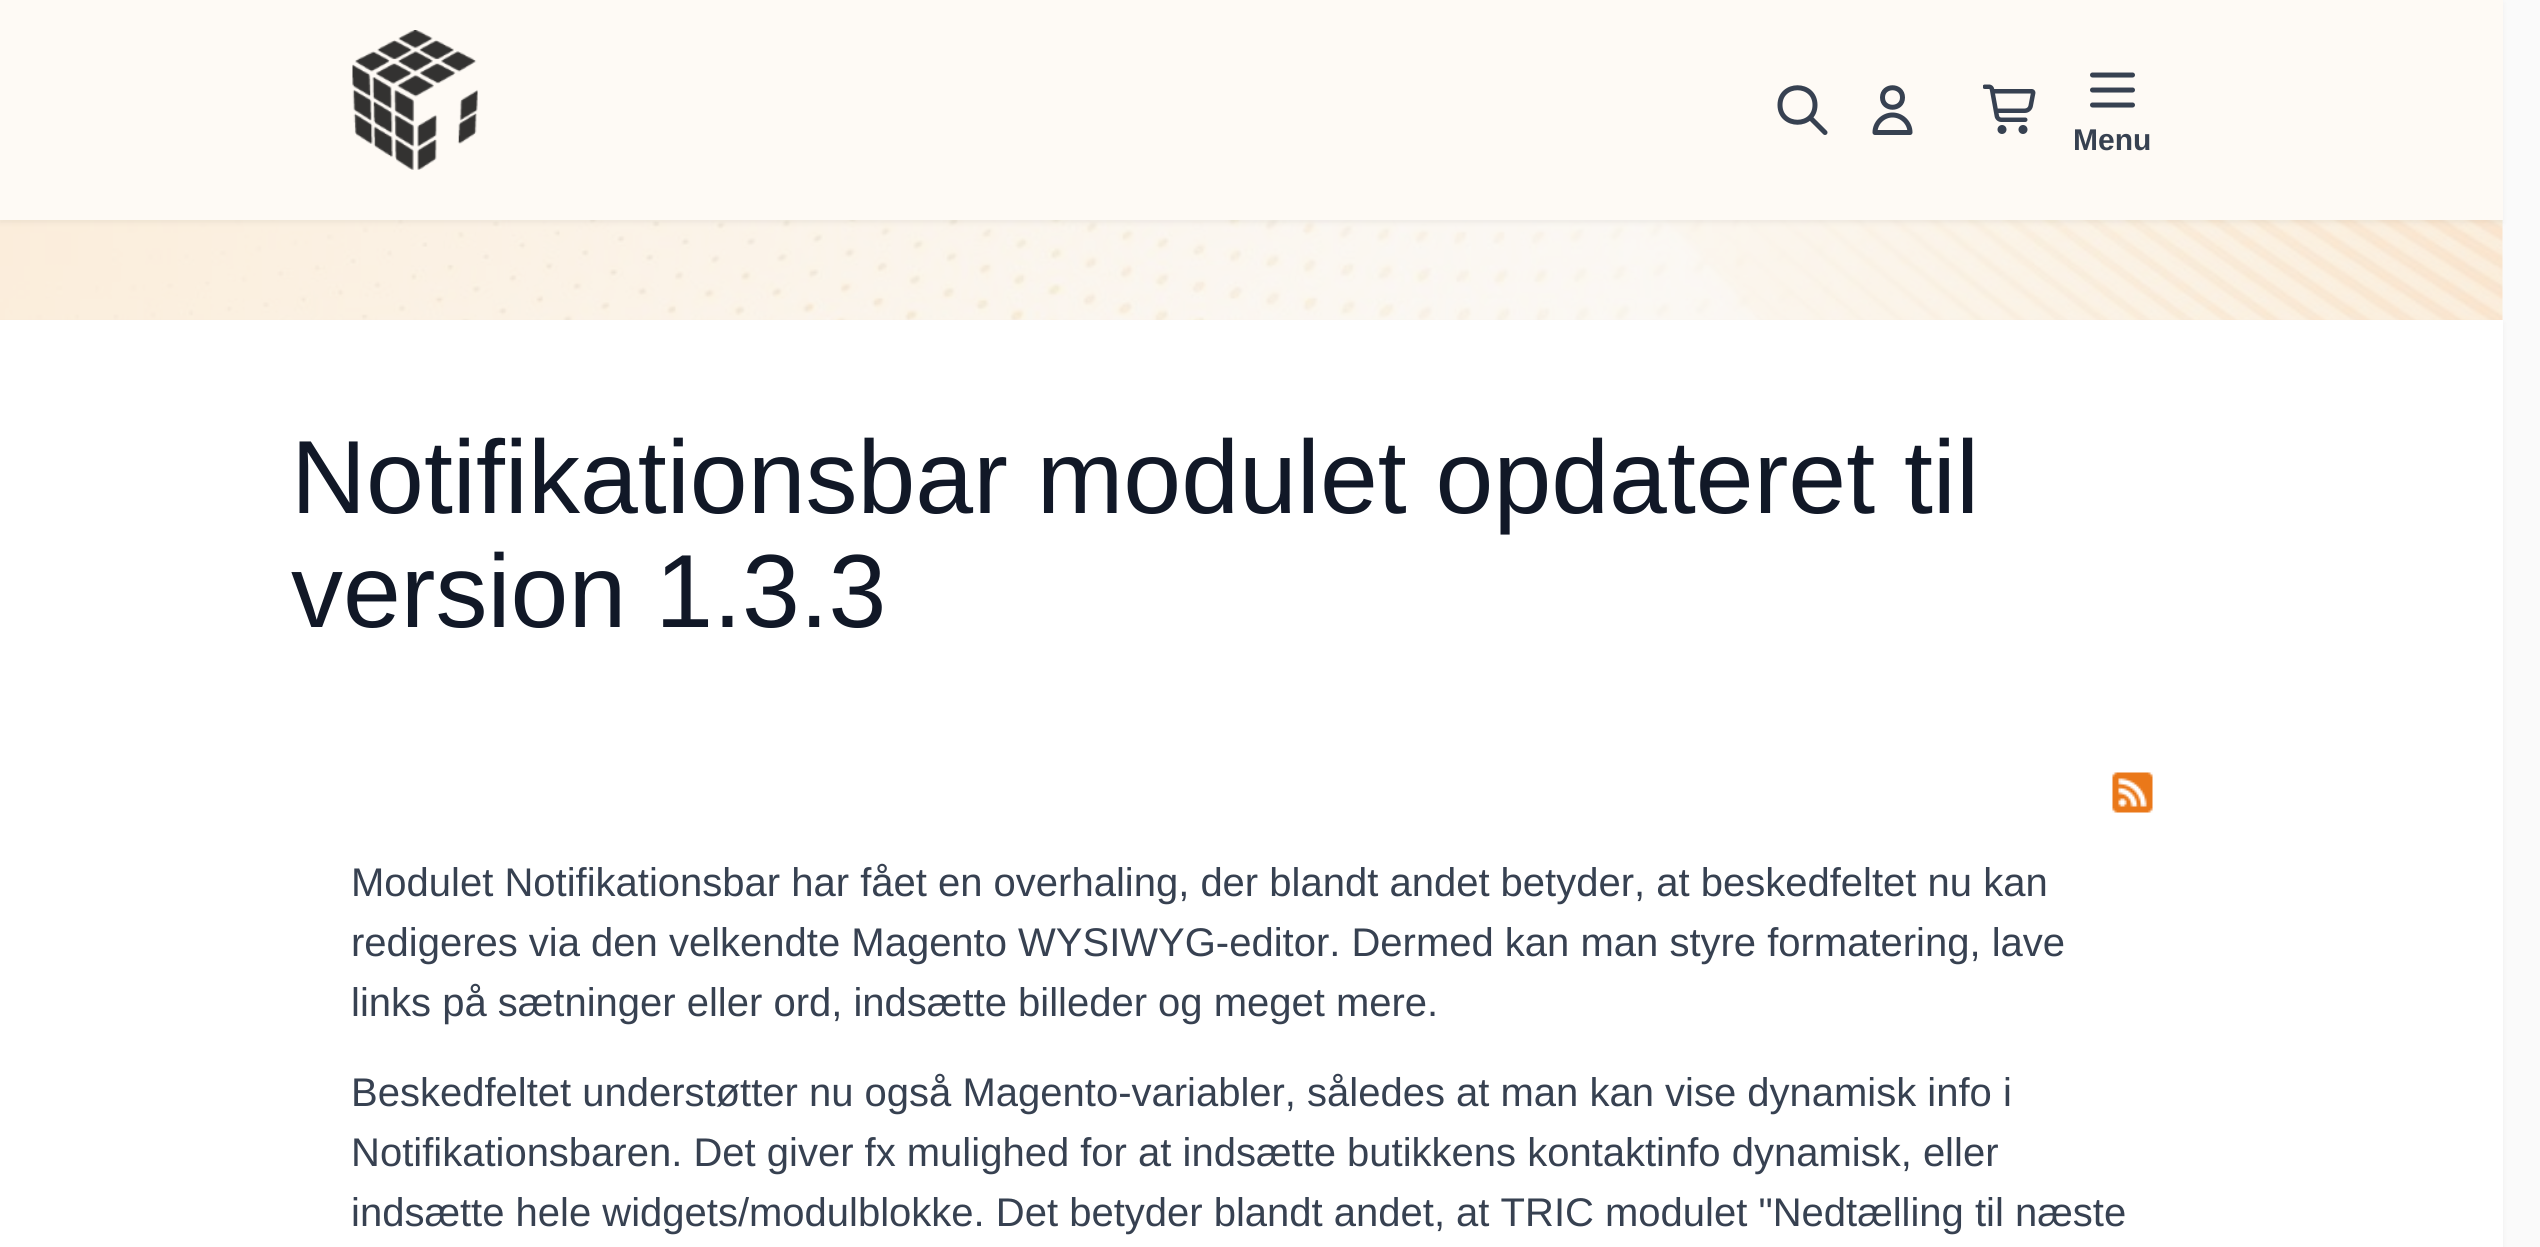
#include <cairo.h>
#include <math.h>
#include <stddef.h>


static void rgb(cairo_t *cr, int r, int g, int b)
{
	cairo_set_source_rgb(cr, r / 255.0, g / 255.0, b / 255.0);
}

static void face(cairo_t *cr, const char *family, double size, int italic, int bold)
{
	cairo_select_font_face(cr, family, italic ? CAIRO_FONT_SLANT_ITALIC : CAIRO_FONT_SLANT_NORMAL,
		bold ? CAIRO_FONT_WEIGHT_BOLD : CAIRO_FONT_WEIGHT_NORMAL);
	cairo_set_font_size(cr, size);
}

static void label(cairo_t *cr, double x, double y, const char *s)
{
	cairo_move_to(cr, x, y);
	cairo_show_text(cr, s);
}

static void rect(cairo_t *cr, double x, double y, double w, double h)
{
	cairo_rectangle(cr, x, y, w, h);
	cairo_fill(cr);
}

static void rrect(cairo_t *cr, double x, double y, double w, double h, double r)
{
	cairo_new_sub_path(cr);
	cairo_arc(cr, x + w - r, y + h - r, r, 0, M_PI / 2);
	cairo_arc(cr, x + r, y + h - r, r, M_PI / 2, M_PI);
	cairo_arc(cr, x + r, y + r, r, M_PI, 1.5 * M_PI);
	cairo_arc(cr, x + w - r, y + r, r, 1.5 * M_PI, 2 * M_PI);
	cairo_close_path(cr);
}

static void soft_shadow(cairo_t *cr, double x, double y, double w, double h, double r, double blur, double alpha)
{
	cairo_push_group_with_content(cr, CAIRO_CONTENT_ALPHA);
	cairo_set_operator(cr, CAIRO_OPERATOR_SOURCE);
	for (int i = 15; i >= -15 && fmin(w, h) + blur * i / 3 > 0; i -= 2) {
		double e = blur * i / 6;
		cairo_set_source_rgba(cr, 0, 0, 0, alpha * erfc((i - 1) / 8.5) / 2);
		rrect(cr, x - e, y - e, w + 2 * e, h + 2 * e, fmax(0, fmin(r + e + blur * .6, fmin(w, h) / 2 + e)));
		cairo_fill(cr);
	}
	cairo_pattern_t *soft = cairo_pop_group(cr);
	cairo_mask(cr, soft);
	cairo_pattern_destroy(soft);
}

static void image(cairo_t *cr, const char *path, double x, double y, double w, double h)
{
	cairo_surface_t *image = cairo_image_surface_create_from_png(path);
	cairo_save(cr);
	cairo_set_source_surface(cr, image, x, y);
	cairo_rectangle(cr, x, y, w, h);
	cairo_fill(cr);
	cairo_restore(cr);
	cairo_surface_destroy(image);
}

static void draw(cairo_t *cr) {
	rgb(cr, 250, 250, 250);
	cairo_paint(cr);
	image(cr, "image2.png", 0, 220, 2503, 100);
	rgb(cr, 0, 0, 0);
	soft_shadow(cr, 0, 3, 2503, 220, 0, 2.5, 0.05);
	rgb(cr, 254, 250, 245);
	rect(cr, 0, 0, 2503, 220);
	image(cr, "image0.png", 352, 30, 126, 140);
	cairo_new_path(cr);
	cairo_move_to(cr, 1825, 132.5);
	cairo_line_to(cr, 1810, 117.5);
	cairo_move_to(cr, 1815, 105);
	cairo_curve_to(cr, 1815, 128, 1780, 128, 1780, 105);
	cairo_curve_to(cr, 1780, 82, 1815, 82, 1815, 105);
	cairo_close_path(cr);
	rgb(cr, 55, 65, 81);
	cairo_set_line_width(cr, 5);
	cairo_set_line_cap(cr, CAIRO_LINE_CAP_ROUND);
	cairo_set_line_join(cr, CAIRO_LINE_JOIN_ROUND);
	cairo_stroke(cr);
	cairo_new_path(cr);
	cairo_move_to(cr, 1902.5, 97.5);
	cairo_curve_to(cr, 1902.5, 110.5, 1882.5, 110.5, 1882.5, 97.5);
	cairo_curve_to(cr, 1882.5, 84.5, 1902.5, 84.5, 1902.5, 97.5);
	cairo_close_path(cr);
	cairo_move_to(cr, 1892.5, 115);
	cairo_curve_to(cr, 1883, 115, 1875, 123, 1875, 132.5);
	cairo_line_to(cr, 1910, 132.5);
	cairo_curve_to(cr, 1910, 123, 1902, 115, 1892.5, 115);
	cairo_close_path(cr);
	cairo_stroke(cr);
	image(cr, "image1.png", 1983, 84, 53, 50);
	cairo_new_path(cr);
	cairo_move_to(cr, 2092.5, 75);
	cairo_line_to(cr, 2132.5, 75);
	cairo_move_to(cr, 2092.5, 90);
	cairo_line_to(cr, 2132.5, 90);
	cairo_move_to(cr, 2092.5, 105);
	cairo_line_to(cr, 2132.5, 105);
	cairo_stroke(cr);
	face(cr, "Liberation Sans", 30, 0, 1);
	label(cr, 2073, 150, "Menu");
	rgb(cr, 0, 0, 0);
	soft_shadow(cr, 0, 323, 2503, 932, 0, 2.5, 0.05);
	rgb(cr, 255, 255, 255);
	rect(cr, 0, 320, 2503, 927);
	face(cr, "Liberation Sans", 104, 0, 0);
	rgb(cr, 17, 24, 39);
	label(cr, 291, 513, "Notifikationsbar modulet opdateret til");
	label(cr, 291, 627, "version 1.3.3");
	image(cr, "image3.png", 2112, 772, 41, 41);
	face(cr, "Liberation Sans", 40, 0, 0);
	rgb(cr, 55, 65, 81);
	label(cr, 351, 896, "Modulet Notifikationsbar har fået en overhaling, der blandt andet betyder, at beskedfeltet nu kan");
	label(cr, 351, 956, "redigeres via den velkendte Magento WYSIWYG-editor. Dermed kan man styre formatering, lave");
	label(cr, 351, 1016, "links på sætninger eller ord, indsætte billeder og meget mere.");
	label(cr, 351, 1106, "Beskedfeltet understøtter nu også Magento-variabler, således at man kan vise dynamisk info i");
	label(cr, 351, 1166, "Notifikationsbaren. Det giver fx mulighed for at indsætte butikkens kontaktinfo dynamisk, eller");
	label(cr, 351, 1226, "indsætte hele widgets/modulblokke. Det betyder blandt andet, at TRIC modulet \"Nedtælling til næste");
}

int main(void) {
	cairo_surface_t *surface = cairo_image_surface_create(CAIRO_FORMAT_RGB24, 2540, 1247);
	cairo_t *cr = cairo_create(surface);
	cairo_font_options_t *options = cairo_font_options_create();
	cairo_font_options_set_hint_metrics(options, CAIRO_HINT_METRICS_OFF);
	cairo_font_options_set_hint_style(options, CAIRO_HINT_STYLE_NONE);
	cairo_set_font_options(cr, options);
	cairo_set_miter_limit(cr, 4);
	draw(cr);
	cairo_surface_write_to_png(surface, "render.png");
	cairo_font_options_destroy(options);
	cairo_destroy(cr);
	cairo_surface_destroy(surface);
	return 0;
}
